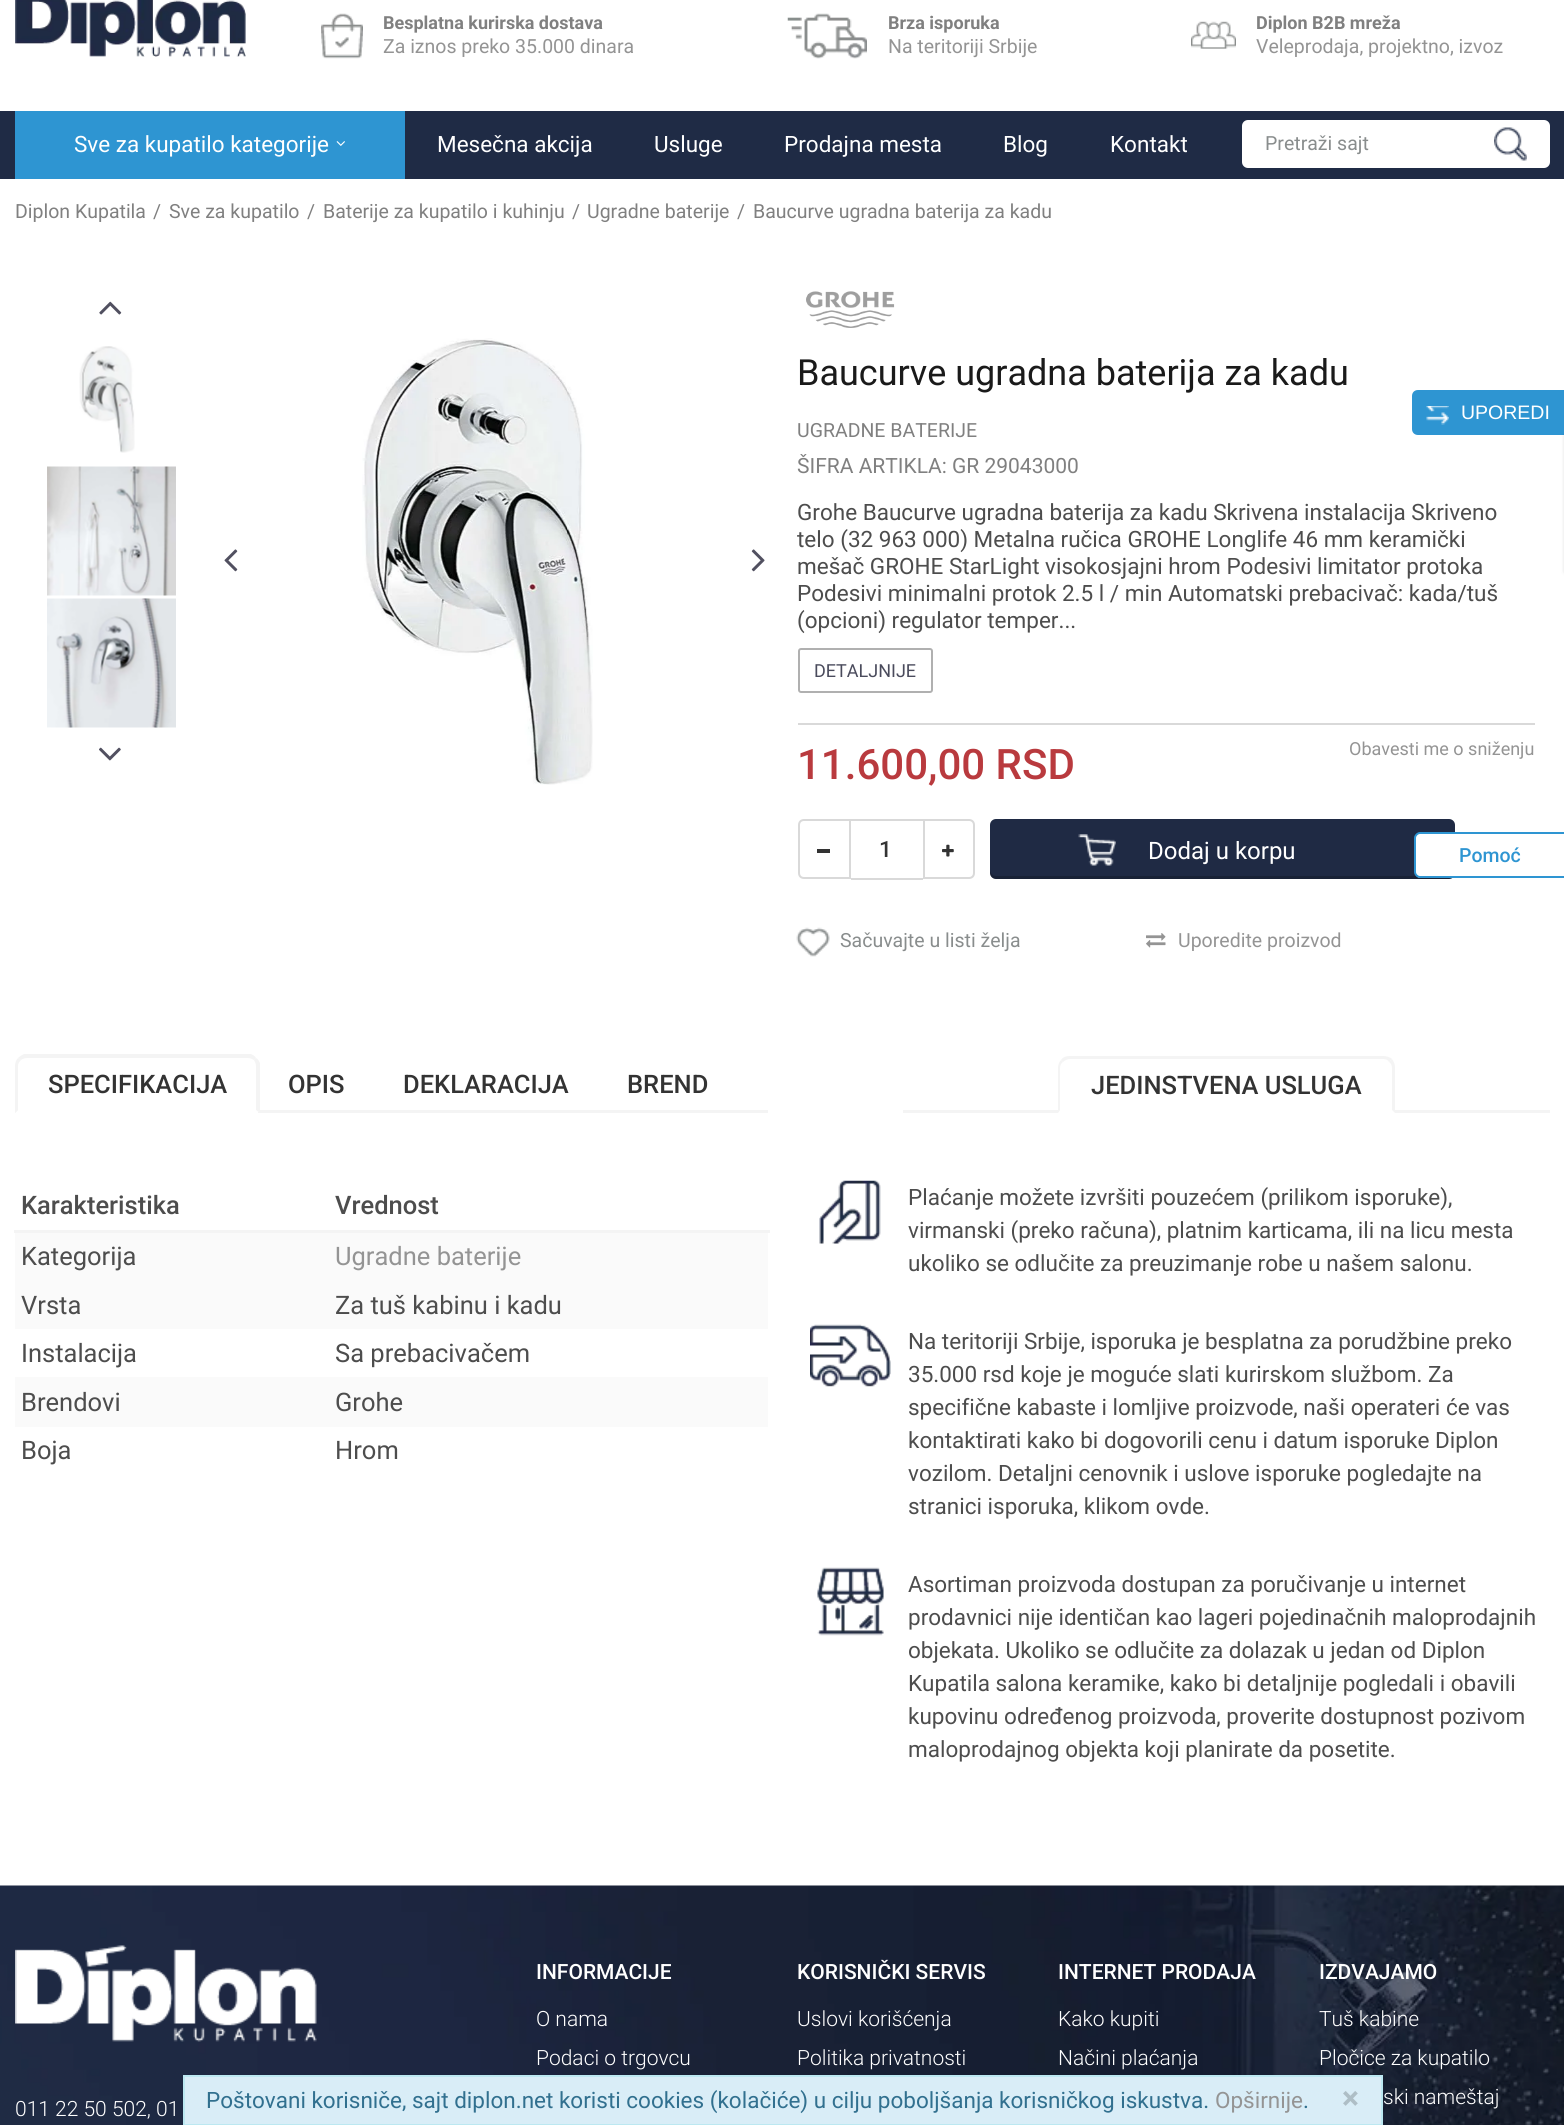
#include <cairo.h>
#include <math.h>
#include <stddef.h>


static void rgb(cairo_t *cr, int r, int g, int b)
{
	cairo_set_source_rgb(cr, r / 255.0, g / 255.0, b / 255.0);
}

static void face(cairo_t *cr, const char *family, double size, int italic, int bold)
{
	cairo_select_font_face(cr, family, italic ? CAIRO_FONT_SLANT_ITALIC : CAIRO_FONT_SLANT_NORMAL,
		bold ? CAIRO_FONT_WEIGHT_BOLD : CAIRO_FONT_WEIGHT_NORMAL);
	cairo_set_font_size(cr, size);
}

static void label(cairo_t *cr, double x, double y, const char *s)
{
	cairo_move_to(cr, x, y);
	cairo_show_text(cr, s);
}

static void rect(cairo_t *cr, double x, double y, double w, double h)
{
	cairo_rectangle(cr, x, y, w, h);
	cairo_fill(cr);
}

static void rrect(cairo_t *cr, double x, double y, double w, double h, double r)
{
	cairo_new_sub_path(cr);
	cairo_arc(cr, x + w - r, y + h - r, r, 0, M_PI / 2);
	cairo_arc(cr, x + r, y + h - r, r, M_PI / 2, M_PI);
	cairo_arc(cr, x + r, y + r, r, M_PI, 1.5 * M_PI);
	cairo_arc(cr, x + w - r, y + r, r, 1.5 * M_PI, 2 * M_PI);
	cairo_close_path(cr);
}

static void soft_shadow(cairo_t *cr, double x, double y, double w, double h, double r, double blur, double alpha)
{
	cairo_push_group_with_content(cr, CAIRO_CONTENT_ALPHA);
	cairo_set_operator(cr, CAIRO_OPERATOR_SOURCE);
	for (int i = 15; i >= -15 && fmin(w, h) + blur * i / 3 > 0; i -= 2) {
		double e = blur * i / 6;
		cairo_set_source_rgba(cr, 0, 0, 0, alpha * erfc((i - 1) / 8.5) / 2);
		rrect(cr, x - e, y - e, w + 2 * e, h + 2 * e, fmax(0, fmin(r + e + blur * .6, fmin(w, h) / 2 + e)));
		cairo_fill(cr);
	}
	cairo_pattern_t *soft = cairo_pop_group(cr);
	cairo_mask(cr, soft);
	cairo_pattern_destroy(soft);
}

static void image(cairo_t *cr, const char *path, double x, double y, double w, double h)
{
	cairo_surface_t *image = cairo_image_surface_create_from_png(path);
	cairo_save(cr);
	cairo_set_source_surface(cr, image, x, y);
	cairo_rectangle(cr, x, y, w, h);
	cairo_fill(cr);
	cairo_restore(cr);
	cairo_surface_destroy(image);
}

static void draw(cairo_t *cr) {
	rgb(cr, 255, 255, 255);
	cairo_paint(cr);
	image(cr, "image0.png", 15, 0, 231, 57);
	image(cr, "image1.png", 321, 13, 42, 46);
	face(cr, "Roboto", 18, 0, 1);
	rgb(cr, 128, 128, 128);
	label(cr, 383, 29, "Besplatna kurirska dostava");
	face(cr, "Roboto", 19.5, 0, 0);
	rgb(cr, 148, 148, 148);
	label(cr, 383, 53, "Za iznos preko 35.000 dinara");
	image(cr, "image2.png", 787, 13, 80, 46);
	face(cr, "Roboto", 18, 0, 1);
	rgb(cr, 128, 128, 128);
	label(cr, 888, 29, "Brza isporuka");
	face(cr, "Roboto", 19.5, 0, 0);
	rgb(cr, 148, 148, 148);
	label(cr, 888, 53, "Na teritoriji Srbije");
	image(cr, "image3.png", 1191, 21, 45, 28);
	face(cr, "Roboto", 18, 0, 1);
	rgb(cr, 128, 128, 128);
	label(cr, 1256, 29, "Diplon B2B mreža");
	face(cr, "Roboto", 19.5, 0, 0);
	rgb(cr, 148, 148, 148);
	label(cr, 1256, 53, "Veleprodaja, projektno, izvoz");
	rgb(cr, 31, 43, 69);
	rect(cr, 0, 111, 1564, 68);
	rgb(cr, 46, 149, 210);
	rect(cr, 15, 111, 390, 68);
	face(cr, "Roboto", 22.5, 0, 0);
	rgb(cr, 255, 255, 255);
	label(cr, 74, 152, "Sve za kupatilo kategorije");
	image(cr, "image4.png", 336, 141, 9, 5);
	label(cr, 437, 152, "Mesečna akcija");
	label(cr, 654, 152, "Usluge");
	label(cr, 784, 152, "Prodajna mesta");
	label(cr, 1003, 152, "Blog");
	label(cr, 1110, 152, "Kontakt");
	rrect(cr, 1242, 120, 308, 48, 6);
	cairo_fill(cr);
	face(cr, "Roboto", 19.5, 0, 0);
	rgb(cr, 137, 141, 141);
	label(cr, 1265, 150, "Pretraži sajt");
	image(cr, "image5.png", 1494, 127, 33, 34);
	rgb(cr, 128, 128, 128);
	label(cr, 15, 218, "Diplon Kupatila");
	label(cr, 153, 218, "/");
	label(cr, 169, 218, "Sve za kupatilo");
	label(cr, 307, 218, "/");
	label(cr, 323, 218, "Baterije za kupatilo i kuhinju");
	label(cr, 572, 218, "/");
	label(cr, 587, 218, "Ugradne baterije");
	label(cr, 737, 218, "/");
	label(cr, 753, 218, "Baucurve ugradna baterija za kadu");
	rgb(cr, 46, 149, 210);
	cairo_new_path(cr);
	cairo_move_to(cr, 1418, 390);
	cairo_line_to(cr, 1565, 390);
	cairo_line_to(cr, 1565, 435);
	cairo_line_to(cr, 1418, 435);
	cairo_curve_to(cr, 1414.5, 435, 1412, 432.5, 1412, 429);
	cairo_line_to(cr, 1412, 396);
	cairo_curve_to(cr, 1412, 392.5, 1414.5, 390, 1418, 390);
	cairo_close_path(cr);
	cairo_fill(cr);
	image(cr, "image6.png", 1426, 406, 23, 19);
	face(cr, "Liberation Sans", 19.5, 0, 0);
	rgb(cr, 255, 255, 255);
	label(cr, 1461, 419, "UPOREDI");
	rgb(cr, 0, 0, 0);
	soft_shadow(cr, 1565, 435, 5, 137, 0, 2, 0.2);
	image(cr, "image7.png", 99, 301, 23, 14);
	image(cr, "image8.png", 99, 747, 22, 14);
	image(cr, "image9.png", 79, 346, 56, 107);
	image(cr, "image10.png", 47, 466, 129, 130);
	image(cr, "image11.png", 47, 598, 129, 130);
	image(cr, "image12.png", 362, 338, 231, 447);
	image(cr, "image13.png", 224, 549, 14, 23);
	image(cr, "image14.png", 751, 549, 14, 23);
	rgb(cr, 217, 217, 217);
	rect(cr, 798, 723, 737, 2);
	image(cr, "image15.png", 806, 291, 89, 37);
	face(cr, "Roboto", 36, 0, 0);
	rgb(cr, 26, 26, 26);
	label(cr, 797, 385, "Baucurve ugradna baterija za kadu");
	face(cr, "Roboto", 19.5, 0, 0);
	rgb(cr, 128, 128, 128);
	label(cr, 797, 437, "UGRADNE BATERIJE");
	face(cr, "Roboto", 21, 0, 0);
	label(cr, 797, 473, "ŠIFRA ARTIKLA: GR 29043000");
	face(cr, "Roboto", 22.5, 0, 0);
	rgb(cr, 77, 77, 77);
	label(cr, 797, 520, "Grohe Baucurve ugradna baterija za kadu Skrivena instalacija Skriveno");
	label(cr, 797, 547, "telo (32 963 000) Metalna ručica GROHE Longlife 46 mm keramički");
	label(cr, 797, 574, "mešač GROHE StarLight visokosjajni hrom Podesivi limitator protoka");
	label(cr, 797, 601, "Podesivi minimalni protok 2.5 l / min Automatski prebacivač: kada/tuš");
	label(cr, 797, 628, "(opcioni) regulator temper...");
	rrect(cr, 799, 649, 133, 43, 2);
	rgb(cr, 176, 176, 176);
	cairo_stroke(cr);
	face(cr, "Roboto", 18, 0, 0);
	rgb(cr, 74, 75, 92);
	label(cr, 814, 677, "DETALJNIJE");
	face(cr, "Roboto Medium", 42, 0, 0);
	rgb(cr, 185, 58, 62);
	label(cr, 797, 779, "11.600,00 RSD");
	face(cr, "Roboto", 18, 0, 0);
	rgb(cr, 148, 148, 148);
	label(cr, 1349, 755, "Obavesti me o sniženju");
	cairo_new_path(cr);
	cairo_move_to(cr, 804, 820);
	cairo_line_to(cr, 850, 820);
	cairo_line_to(cr, 850, 878);
	cairo_line_to(cr, 804, 878);
	cairo_curve_to(cr, 801, 878, 799, 876, 799, 873);
	cairo_line_to(cr, 799, 825);
	cairo_curve_to(cr, 799, 822, 801, 820, 804, 820);
	cairo_close_path(cr);
	rgb(cr, 217, 217, 217);
	cairo_stroke(cr);
	rgb(cr, 51, 51, 51);
	rect(cr, 817, 849, 13, 4);
	rgb(cr, 217, 217, 217);
	rect(cr, 851, 819, 72, 2);
	rect(cr, 851, 878, 72, 2);
	face(cr, "Roboto Medium", 22.5, 0, 0);
	rgb(cr, 51, 51, 51);
	label(cr, 879, 857, "1");
	cairo_new_path(cr);
	cairo_move_to(cr, 924, 820);
	cairo_line_to(cr, 969, 820);
	cairo_curve_to(cr, 972, 820, 974, 822, 974, 825);
	cairo_line_to(cr, 974, 873);
	cairo_curve_to(cr, 974, 876, 972, 878, 969, 878);
	cairo_line_to(cr, 924, 878);
	cairo_close_path(cr);
	rgb(cr, 217, 217, 217);
	cairo_stroke(cr);
	image(cr, "image16.png", 942, 844, 12, 13);
	rgb(cr, 31, 42, 68);
	rrect(cr, 990, 819, 465, 60, 6);
	cairo_fill(cr);
	cairo_set_source_rgba(cr, 0, 0, 0, 0.2);
	cairo_new_path(cr);
	cairo_move_to(cr, 990, 870);
	cairo_line_to(cr, 990, 873);
	cairo_curve_to(cr, 990, 876, 993, 879, 996, 879);
	cairo_line_to(cr, 1449, 879);
	cairo_curve_to(cr, 1452, 879, 1455, 876, 1455, 873);
	cairo_line_to(cr, 1455, 870);
	cairo_curve_to(cr, 1455, 873, 1452, 876, 1449, 876);
	cairo_line_to(cr, 996, 876);
	cairo_curve_to(cr, 993, 876, 990, 873, 990, 870);
	cairo_close_path(cr);
	cairo_fill(cr);
	image(cr, "image17.png", 1078, 834, 38, 32);
	face(cr, "Roboto", 24, 0, 0);
	rgb(cr, 255, 255, 255);
	label(cr, 1148, 859, "Dodaj u korpu");
	image(cr, "image18.png", 796, 927, 34, 30);
	face(cr, "Roboto", 19.5, 0, 0);
	rgb(cr, 137, 141, 141);
	label(cr, 840, 947, "Sačuvajte u listi želja");
	image(cr, "image19.png", 1146, 933, 20, 15);
	rgb(cr, 148, 148, 148);
	label(cr, 1178, 947, "Uporedite proizvod");
	rgb(cr, 255, 255, 255);
	cairo_new_path(cr);
	cairo_move_to(cr, 1421, 833);
	cairo_line_to(cr, 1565, 833);
	cairo_line_to(cr, 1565, 878);
	cairo_line_to(cr, 1421, 878);
	cairo_curve_to(cr, 1417.5, 878, 1415, 875.5, 1415, 872);
	cairo_line_to(cr, 1415, 839);
	cairo_curve_to(cr, 1415, 835.5, 1417.5, 833, 1421, 833);
	cairo_close_path(cr);
	cairo_fill(cr);
	rgb(cr, 46, 149, 210);
	cairo_set_fill_rule(cr, CAIRO_FILL_RULE_EVEN_ODD);
	cairo_new_path(cr);
	cairo_move_to(cr, 1420, 832);
	cairo_line_to(cr, 1564, 832);
	cairo_line_to(cr, 1564, 878);
	cairo_line_to(cr, 1420, 878);
	cairo_curve_to(cr, 1417, 878, 1414, 875, 1414, 872);
	cairo_line_to(cr, 1414, 838);
	cairo_curve_to(cr, 1414, 835, 1417, 832, 1420, 832);
	cairo_close_path(cr);
	cairo_move_to(cr, 1420, 834);
	cairo_line_to(cr, 1564, 834);
	cairo_line_to(cr, 1564, 876);
	cairo_line_to(cr, 1420, 876);
	cairo_curve_to(cr, 1418, 876, 1416, 874, 1416, 872);
	cairo_line_to(cr, 1416, 838);
	cairo_curve_to(cr, 1416, 836, 1418, 834, 1420, 834);
	cairo_close_path(cr);
	cairo_fill(cr);
	face(cr, "Roboto Medium", 19.5, 0, 0);
	label(cr, 1459, 862, "Pomoć");
	rgb(cr, 244, 244, 244);
	rect(cr, 15, 1110, 753, 3);
	cairo_set_fill_rule(cr, CAIRO_FILL_RULE_WINDING);
	cairo_new_path(cr);
	cairo_move_to(cr, 27, 1058);
	cairo_curve_to(cr, 25, 1058, 22, 1059, 21, 1060);
	cairo_line_to(cr, 18, 1058);
	cairo_curve_to(cr, 20, 1056, 22, 1055, 24, 1054);
	cairo_line_to(cr, 251, 1054);
	cairo_curve_to(cr, 253, 1055, 255, 1056, 256, 1058);
	cairo_line_to(cr, 254, 1060);
	cairo_curve_to(cr, 252, 1059, 250, 1058, 248, 1058);
	cairo_close_path(cr);
	cairo_fill(cr);
	cairo_new_path(cr);
	cairo_move_to(cr, 260, 1063);
	cairo_line_to(cr, 260, 1113);
	cairo_line_to(cr, 256, 1110);
	cairo_line_to(cr, 256, 1066);
	cairo_curve_to(cr, 256, 1064, 255, 1062, 254, 1060);
	cairo_line_to(cr, 256, 1058);
	cairo_curve_to(cr, 258, 1059, 259, 1061, 260, 1063);
	cairo_close_path(cr);
	cairo_fill(cr);
	rgb(cr, 255, 255, 255);
	cairo_new_path(cr);
	cairo_move_to(cr, 260, 1113);
	cairo_line_to(cr, 256, 1110);
	cairo_line_to(cr, 18, 1110);
	cairo_line_to(cr, 15, 1113);
	cairo_close_path(cr);
	cairo_fill(cr);
	rgb(cr, 244, 244, 244);
	cairo_new_path(cr);
	cairo_move_to(cr, 15, 1113);
	cairo_line_to(cr, 18, 1110);
	cairo_line_to(cr, 18, 1066);
	cairo_curve_to(cr, 18, 1064, 19, 1062, 21, 1060);
	cairo_line_to(cr, 18, 1058);
	cairo_curve_to(cr, 16, 1060, 15, 1063, 15, 1066);
	cairo_close_path(cr);
	cairo_fill(cr);
	face(cr, "Roboto Medium", 25.5, 0, 0);
	rgb(cr, 51, 51, 51);
	label(cr, 48, 1093, "SPECIFIKACIJA");
	rgb(cr, 244, 244, 244);
	rect(cr, 258, 1112, 2, 1);
	rgb(cr, 51, 51, 51);
	label(cr, 288, 1093, "OPIS");
	label(cr, 403, 1093, "DEKLARACIJA");
	label(cr, 627, 1093, "BREND");
	rgb(cr, 77, 77, 77);
	label(cr, 21, 1214, "Karakteristika");
	rgb(cr, 244, 244, 244);
	rect(cr, 14, 1230, 756, 3);
	rgb(cr, 77, 77, 77);
	label(cr, 335, 1214, "Vrednost");
	rgb(cr, 250, 250, 250);
	rect(cr, 15, 1233, 753, 96);
	face(cr, "Roboto", 25.5, 0, 0);
	rgb(cr, 77, 77, 77);
	label(cr, 21, 1265, "Kategorija");
	rgb(cr, 148, 148, 148);
	label(cr, 335, 1265, "Ugradne baterije");
	rgb(cr, 77, 77, 77);
	label(cr, 21, 1314, "Vrsta");
	label(cr, 335, 1314, "Za tuš kabinu i kadu");
	label(cr, 21, 1362, "Instalacija");
	label(cr, 335, 1362, "Sa prebacivačem");
	rgb(cr, 250, 250, 250);
	rect(cr, 15, 1377, 753, 50);
	rgb(cr, 77, 77, 77);
	label(cr, 21, 1411, "Brendovi");
	label(cr, 335, 1411, "Grohe");
	label(cr, 21, 1459, "Boja");
	label(cr, 335, 1459, "Hrom");
	rgb(cr, 244, 244, 244);
	rect(cr, 903, 1110, 647, 3);
	face(cr, "Roboto Medium", 25.5, 0, 0);
	rgb(cr, 51, 51, 51);
	label(cr, 1091, 1094, "JEDINSTVENA USLUGA");
	rgb(cr, 244, 244, 244);
	cairo_new_path(cr);
	cairo_move_to(cr, 1070, 1056);
	cairo_curve_to(cr, 1066, 1056, 1063, 1057, 1061, 1060);
	cairo_line_to(cr, 1063, 1062);
	cairo_curve_to(cr, 1065, 1060, 1068, 1059, 1070, 1059);
	cairo_line_to(cr, 1383, 1059);
	cairo_curve_to(cr, 1386, 1059, 1388, 1060, 1389, 1062);
	cairo_line_to(cr, 1392, 1059);
	cairo_curve_to(cr, 1390, 1057, 1386, 1056, 1383, 1056);
	cairo_close_path(cr);
	cairo_fill(cr);
	cairo_new_path(cr);
	cairo_move_to(cr, 1395, 1113);
	cairo_line_to(cr, 1395, 1068);
	cairo_curve_to(cr, 1395, 1064, 1394, 1062, 1392, 1059);
	cairo_line_to(cr, 1389, 1062);
	cairo_curve_to(cr, 1391, 1063, 1392, 1066, 1392, 1068);
	cairo_line_to(cr, 1392, 1110);
	cairo_close_path(cr);
	cairo_fill(cr);
	rgb(cr, 255, 255, 255);
	cairo_new_path(cr);
	cairo_move_to(cr, 1395, 1113);
	cairo_line_to(cr, 1392, 1110);
	cairo_line_to(cr, 1060, 1110);
	cairo_line_to(cr, 1058, 1113);
	cairo_close_path(cr);
	cairo_fill(cr);
	rgb(cr, 244, 244, 244);
	cairo_new_path(cr);
	cairo_move_to(cr, 1061, 1060);
	cairo_curve_to(cr, 1059, 1062, 1058, 1065, 1058, 1068);
	cairo_line_to(cr, 1058, 1112);
	cairo_line_to(cr, 1060, 1110);
	cairo_line_to(cr, 1060, 1068);
	cairo_curve_to(cr, 1060, 1066, 1061, 1063, 1063, 1062);
	cairo_close_path(cr);
	cairo_fill(cr);
	image(cr, "image20.png", 819, 1180, 62, 64);
	face(cr, "Roboto", 22.5, 0, 0);
	rgb(cr, 77, 77, 77);
	label(cr, 908, 1205, "Plaćanje možete izvršiti pouzećem (prilikom isporuke),");
	label(cr, 908, 1238, "virmanski (preko računa), platnim karticama, ili na licu mesta");
	label(cr, 908, 1271, "ukoliko se odlučite za preuzimanje robe u našem salonu.");
	image(cr, "image21.png", 810, 1324, 81, 63);
	label(cr, 908, 1349, "Na teritoriji Srbije, isporuka je besplatna za porudžbine preko");
	label(cr, 908, 1382, "35.000 rsd koje je moguće slati kurirskom službom. Za");
	label(cr, 908, 1415, "specifične kabaste i lomljive proizvode, naši operateri će vas");
	label(cr, 908, 1448, "kontaktirati kako bi dogovorili cenu i datum isporuke Diplon");
	label(cr, 908, 1481, "vozilom. Detaljni cenovnik i uslove isporuke pogledajte na");
	label(cr, 908, 1514, "stranici isporuka, klikom ovde.");
	image(cr, "image22.png", 817, 1567, 67, 69);
	label(cr, 908, 1592, "Asortiman proizvoda dostupan za poručivanje u internet");
	label(cr, 908, 1625, "prodavnici nije identičan kao lageri pojedinačnih maloprodajnih");
	label(cr, 908, 1658, "objekata. Ukoliko se odlučite za dolazak u jedan od Diplon");
	label(cr, 908, 1691, "Kupatila salona keramike, kako bi detaljnije pogledali i obavili");
	label(cr, 908, 1724, "kupovinu određenog proizvoda, proverite dostupnost pozivom");
	label(cr, 908, 1757, "maloprodajnog objekta koji planirate da posetite.");
	image(cr, "image23.png", 0, 1885, 1564, 240);
	image(cr, "image24.png", 15, 1945, 302, 97);
	face(cr, "Roboto Light", 21, 0, 0);
	rgb(cr, 255, 255, 255);
	label(cr, 15, 2116, "011 22 50 502, 01");
	face(cr, "Roboto Medium", 21, 0, 0);
	label(cr, 536, 1979, "INFORMACIJE");
	face(cr, "Roboto Light", 21, 0, 0);
	label(cr, 536, 2026, "O nama");
	label(cr, 536, 2065, "Podaci o trgovcu");
	face(cr, "Roboto Medium", 21, 0, 0);
	label(cr, 797, 1979, "KORISNIČKI SERVIS");
	face(cr, "Roboto Light", 21, 0, 0);
	label(cr, 797, 2026, "Uslovi korišćenja");
	label(cr, 797, 2065, "Politika privatnosti");
	face(cr, "Roboto Medium", 21, 0, 0);
	label(cr, 1058, 1979, "INTERNET PRODAJA");
	face(cr, "Roboto Light", 21, 0, 0);
	label(cr, 1058, 2026, "Kako kupiti");
	label(cr, 1058, 2065, "Načini plaćanja");
	face(cr, "Roboto Medium", 21, 0, 0);
	label(cr, 1319, 1979, "IZDVAJAMO");
	face(cr, "Roboto Light", 21, 0, 0);
	label(cr, 1319, 2026, "Tuš kabine");
	label(cr, 1319, 2065, "Pločice za kupatilo");
	label(cr, 1383, 2104, "ski nameštaj");
	rgb(cr, 217, 237, 247);
	cairo_rectangle(cr, 184, 2076, 1198, 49);
	cairo_fill_preserve(cr);
	rgb(cr, 188, 232, 241);
	cairo_stroke(cr);
	face(cr, "Roboto", 22.5, 0, 0);
	rgb(cr, 49, 112, 143);
	label(cr, 206, 2108, "Poštovani korisniče, sajt diplon.net koristi cookies (kolačiće) u cilju poboljšanja korisničkog iskustva.");
	rgb(cr, 148, 148, 148);
	label(cr, 1215, 2108, "Opširnije");
	rgb(cr, 49, 112, 143);
	label(cr, 1303, 2108, ".");
	face(cr, "Roboto", 32, 0, 1);
	rgb(cr, 174, 190, 198);
	label(cr, 1342, 2109, "×");
}

int main(void) {
	cairo_surface_t *surface = cairo_image_surface_create(CAIRO_FORMAT_RGB24, 1564, 2125);
	cairo_t *cr = cairo_create(surface);
	cairo_font_options_t *options = cairo_font_options_create();
	cairo_font_options_set_hint_metrics(options, CAIRO_HINT_METRICS_OFF);
	cairo_font_options_set_hint_style(options, CAIRO_HINT_STYLE_NONE);
	cairo_set_font_options(cr, options);
	cairo_set_miter_limit(cr, 4);
	draw(cr);
	cairo_surface_write_to_png(surface, "render.png");
	cairo_font_options_destroy(options);
	cairo_destroy(cr);
	cairo_surface_destroy(surface);
	return 0;
}
